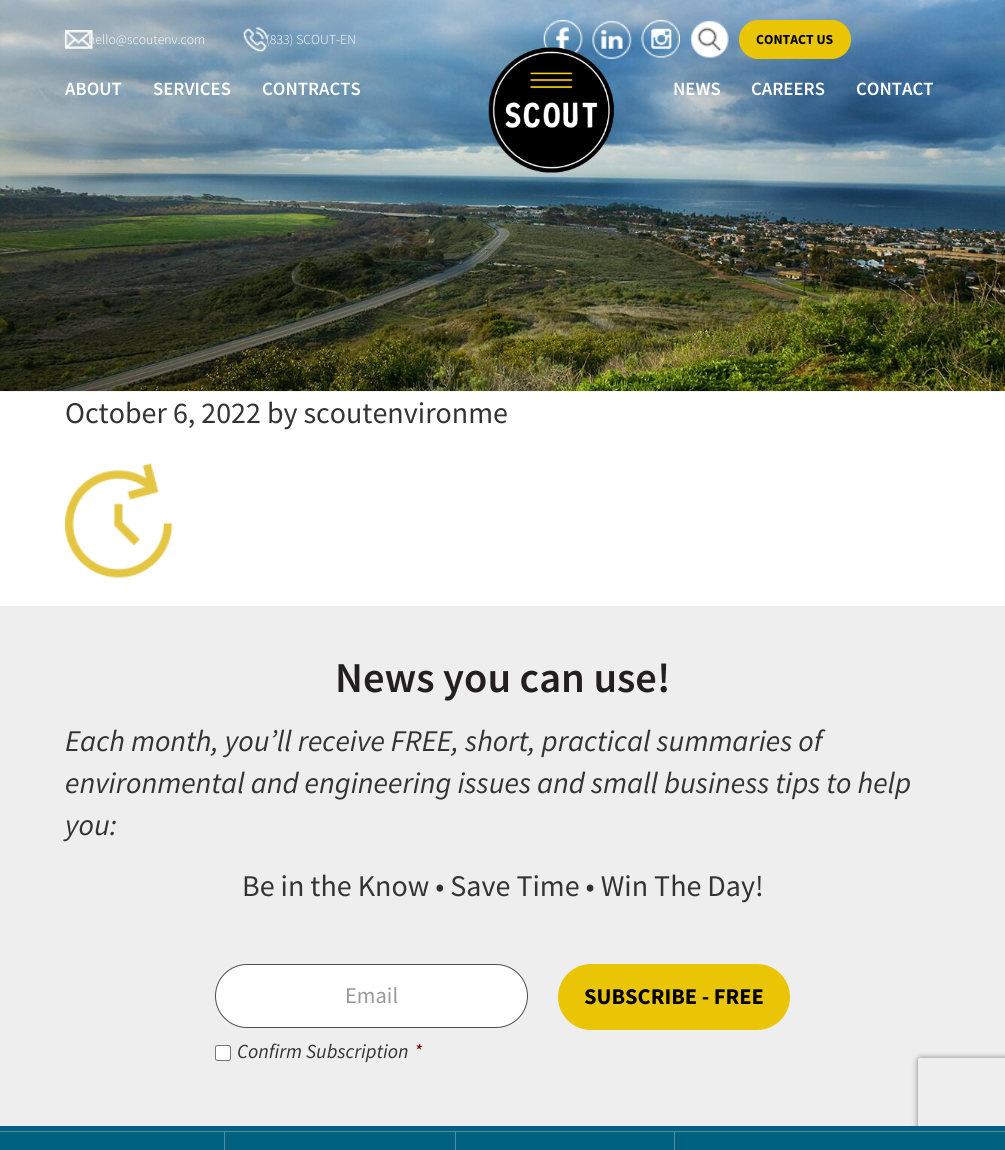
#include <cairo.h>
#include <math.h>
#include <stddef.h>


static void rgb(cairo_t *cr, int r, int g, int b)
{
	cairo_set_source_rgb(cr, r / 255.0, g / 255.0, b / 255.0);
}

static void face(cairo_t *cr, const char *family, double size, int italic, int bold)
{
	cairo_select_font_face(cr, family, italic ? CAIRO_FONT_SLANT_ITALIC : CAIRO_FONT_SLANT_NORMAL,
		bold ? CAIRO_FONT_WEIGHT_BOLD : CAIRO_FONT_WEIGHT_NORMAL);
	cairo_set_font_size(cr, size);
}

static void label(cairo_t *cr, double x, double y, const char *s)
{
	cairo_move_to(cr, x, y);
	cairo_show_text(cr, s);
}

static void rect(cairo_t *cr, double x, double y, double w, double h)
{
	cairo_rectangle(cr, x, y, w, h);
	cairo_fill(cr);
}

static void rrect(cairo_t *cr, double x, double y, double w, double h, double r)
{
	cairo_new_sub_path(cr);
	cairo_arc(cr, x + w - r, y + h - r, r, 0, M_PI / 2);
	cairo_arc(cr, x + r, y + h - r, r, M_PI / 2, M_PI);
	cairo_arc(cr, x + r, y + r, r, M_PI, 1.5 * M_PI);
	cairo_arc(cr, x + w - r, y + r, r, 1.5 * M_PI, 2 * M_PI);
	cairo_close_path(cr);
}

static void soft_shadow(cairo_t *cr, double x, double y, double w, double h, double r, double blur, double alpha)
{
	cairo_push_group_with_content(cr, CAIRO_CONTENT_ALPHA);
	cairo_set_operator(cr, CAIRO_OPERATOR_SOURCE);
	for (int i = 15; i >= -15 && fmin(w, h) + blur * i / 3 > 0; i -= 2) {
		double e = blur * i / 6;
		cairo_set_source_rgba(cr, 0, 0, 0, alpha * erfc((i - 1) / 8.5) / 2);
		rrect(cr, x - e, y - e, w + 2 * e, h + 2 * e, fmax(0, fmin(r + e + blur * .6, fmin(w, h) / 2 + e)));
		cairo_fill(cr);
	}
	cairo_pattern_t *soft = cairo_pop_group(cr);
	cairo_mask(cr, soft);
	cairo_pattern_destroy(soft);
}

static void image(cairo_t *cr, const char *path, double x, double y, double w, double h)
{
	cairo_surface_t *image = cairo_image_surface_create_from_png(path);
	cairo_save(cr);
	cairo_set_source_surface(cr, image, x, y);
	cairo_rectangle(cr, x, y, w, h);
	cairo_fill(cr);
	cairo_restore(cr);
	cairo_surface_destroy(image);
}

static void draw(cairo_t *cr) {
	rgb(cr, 255, 255, 255);
	cairo_paint(cr);
	image(cr, "image0.png", 0, 0, 1005, 392);
	image(cr, "image1.png", 65, 30, 28, 19);
	face(cr, "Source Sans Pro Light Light", 13.75, 0, 0);
	rgb(cr, 255, 255, 255);
	label(cr, 88, 44, "hello@scoutenv.com");
	image(cr, "image2.png", 243, 27, 25, 25);
	label(cr, 266, 44, "(833) SCOUT-EN");
	image(cr, "image3.png", 543, 20, 40, 34);
	image(cr, "image4.png", 592, 20, 40, 39);
	image(cr, "image5.png", 641, 20, 39, 39);
	image(cr, "image6.png", 690, 20, 39, 38);
	rgb(cr, 234, 197, 5);
	rrect(cr, 739, 20, 112, 39, 19.5);
	cairo_fill(cr);
	face(cr, "Source Sans Pro", 13.75, 0, 1);
	rgb(cr, 0, 0, 0);
	label(cr, 756, 44, "CONTACT US");
	face(cr, "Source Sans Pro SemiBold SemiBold", 18.75, 0, 0);
	rgb(cr, 255, 255, 255);
	label(cr, 65, 95, "ABOUT");
	label(cr, 153, 95, "SERVICES");
	label(cr, 262, 95, "CONTRACTS");
	image(cr, "image7.png", 488, 47, 126, 126);
	label(cr, 673, 95, "NEWS");
	label(cr, 751, 95, "CAREERS");
	label(cr, 856, 95, "CONTACT");
	face(cr, "Source Sans Pro", 30, 0, 0);
	rgb(cr, 51, 51, 51);
	label(cr, 65, 423, "October 6, 2022 by scoutenvironme");
	image(cr, "image8.png", 65, 463, 108, 115);
	rgb(cr, 238, 238, 238);
	rect(cr, 0, 606, 1005, 520);
	face(cr, "Source Sans Pro SemiBold SemiBold", 42.5, 0, 0);
	rgb(cr, 35, 31, 32);
	label(cr, 335, 692, "News you can use!");
	face(cr, "Source Sans Pro", 30, 1, 0);
	rgb(cr, 51, 51, 51);
	label(cr, 65, 751, "Each month, you’ll receive FREE, short, practical summaries of");
	label(cr, 65, 793, "environmental and engineering issues and small business tips to help");
	label(cr, 65, 835, "you:");
	face(cr, "Source Sans Pro", 30, 0, 0);
	label(cr, 242, 896, "Be in the Know • Save Time • Win The Day!");
	rgb(cr, 255, 255, 255);
	rrect(cr, 215.5, 964.5, 312, 63, 31.5);
	cairo_fill_preserve(cr);
	rgb(cr, 76, 76, 76);
	cairo_set_line_width(cr, 1);
	cairo_stroke(cr);
	face(cr, "Source Sans Pro", 22.5, 0, 0);
	rgb(cr, 153, 153, 153);
	label(cr, 345, 1003, "Email");
	rgb(cr, 255, 255, 255);
	rrect(cr, 215.5, 1045.5, 15, 15, 2);
	cairo_fill_preserve(cr);
	rgb(cr, 118, 118, 118);
	cairo_stroke(cr);
	face(cr, "Source Sans Pro", 20, 1, 0);
	rgb(cr, 51, 51, 51);
	label(cr, 237, 1058, "Confirm Subscription");
	rgb(cr, 121, 0, 0);
	label(cr, 414, 1058, "*");
	cairo_save(cr);
	cairo_set_fill_rule(cr, CAIRO_FILL_RULE_EVEN_ODD);
	cairo_new_path(cr);
	cairo_move_to(cr, 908, 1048);
	cairo_line_to(cr, 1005, 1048);
	cairo_line_to(cr, 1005, 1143);
	cairo_line_to(cr, 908, 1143);
	cairo_close_path(cr);
	cairo_move_to(cr, 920.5, 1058);
	cairo_line_to(cr, 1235.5, 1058);
	cairo_curve_to(cr, 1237, 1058, 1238, 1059, 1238, 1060.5);
	cairo_line_to(cr, 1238, 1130.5);
	cairo_curve_to(cr, 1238, 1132, 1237, 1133, 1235.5, 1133);
	cairo_line_to(cr, 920.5, 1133);
	cairo_curve_to(cr, 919, 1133, 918, 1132, 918, 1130.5);
	cairo_line_to(cr, 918, 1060.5);
	cairo_curve_to(cr, 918, 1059, 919, 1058, 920.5, 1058);
	cairo_close_path(cr);
	cairo_clip(cr);
	rgb(cr, 128, 128, 128);
	soft_shadow(cr, 918, 1058, 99, 75, 2.5, 3, 1);
	cairo_restore(cr);
	rgb(cr, 234, 197, 5);
	rrect(cr, 558, 964, 232, 66, 33);
	cairo_fill(cr);
	face(cr, "Source Sans Pro", 22.5, 0, 1);
	rgb(cr, 0, 0, 0);
	label(cr, 584, 1004, "SUBSCRIBE - FREE");
	rgb(cr, 0, 96, 127);
	rect(cr, 0, 1126, 1005, 24);
	rgb(cr, 77, 144, 166);
	rect(cr, 224, 1131, 1, 19);
	rect(cr, 455, 1131, 1, 19);
	rect(cr, 674, 1131, 1, 19);
	rect(cr, 0, 1131, 1005, 1);
}

int main(void) {
	cairo_surface_t *surface = cairo_image_surface_create(CAIRO_FORMAT_RGB24, 1005, 1150);
	cairo_t *cr = cairo_create(surface);
	cairo_font_options_t *options = cairo_font_options_create();
	cairo_font_options_set_hint_metrics(options, CAIRO_HINT_METRICS_OFF);
	cairo_font_options_set_hint_style(options, CAIRO_HINT_STYLE_NONE);
	cairo_set_font_options(cr, options);
	cairo_set_miter_limit(cr, 4);
	draw(cr);
	cairo_surface_write_to_png(surface, "render.png");
	cairo_font_options_destroy(options);
	cairo_destroy(cr);
	cairo_surface_destroy(surface);
	return 0;
}
